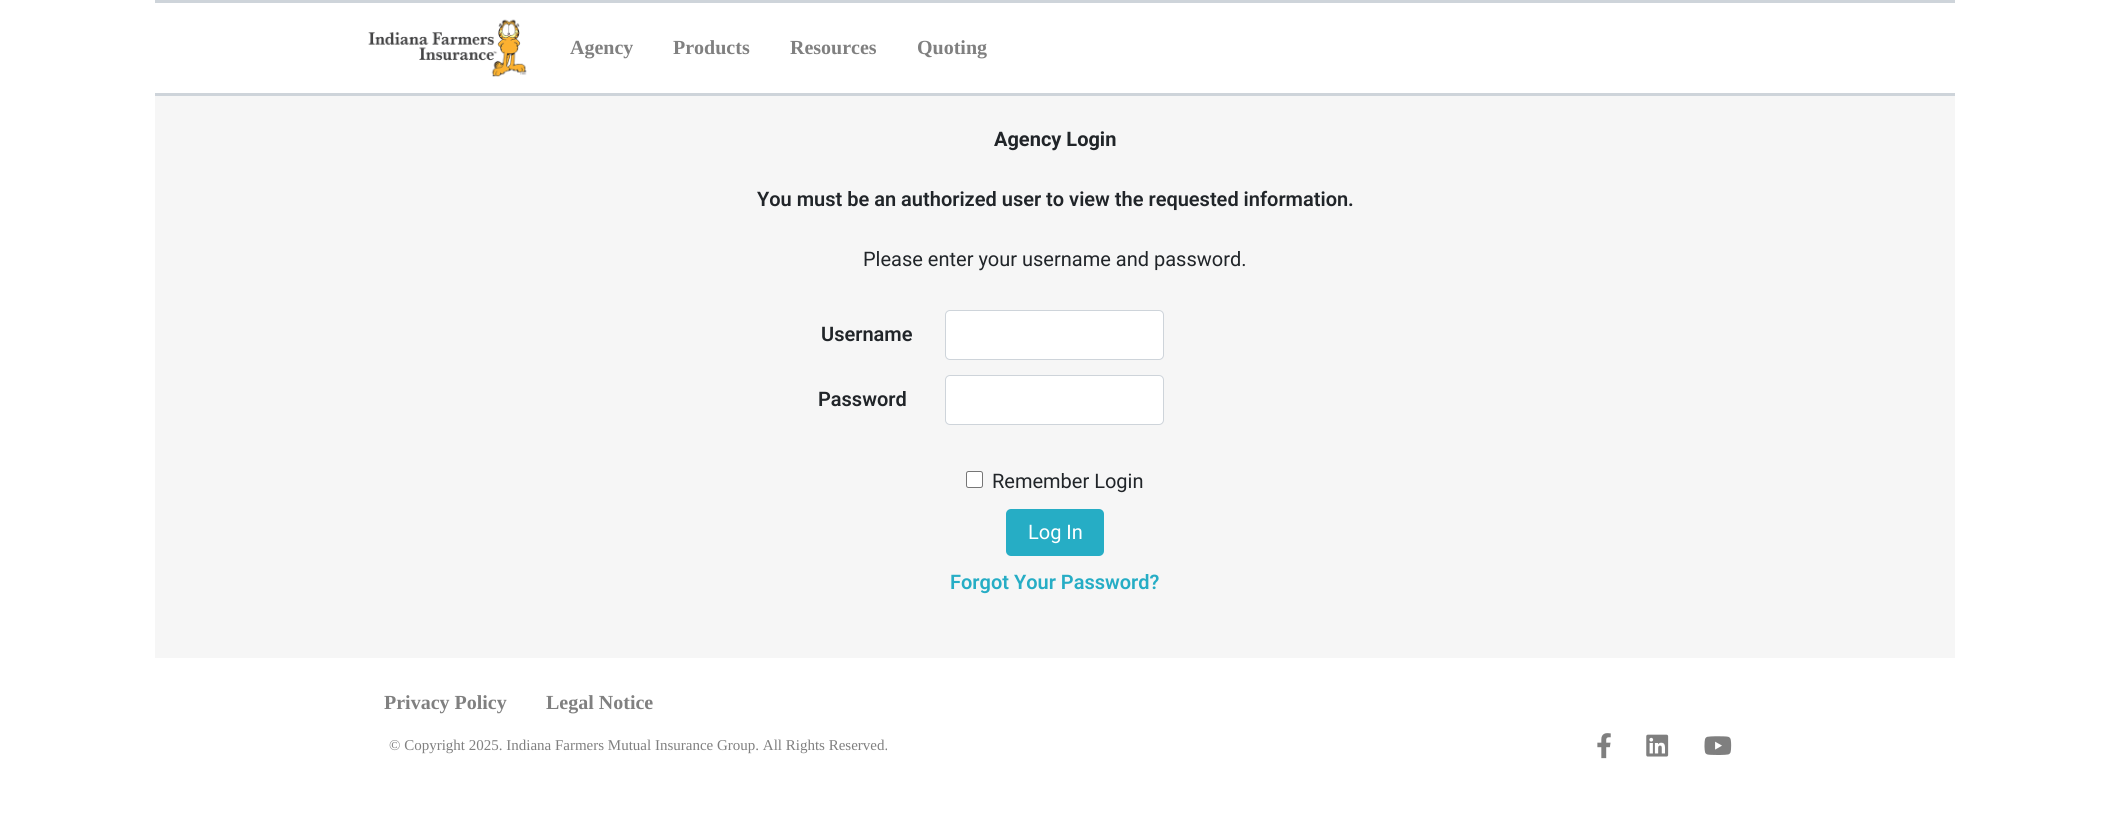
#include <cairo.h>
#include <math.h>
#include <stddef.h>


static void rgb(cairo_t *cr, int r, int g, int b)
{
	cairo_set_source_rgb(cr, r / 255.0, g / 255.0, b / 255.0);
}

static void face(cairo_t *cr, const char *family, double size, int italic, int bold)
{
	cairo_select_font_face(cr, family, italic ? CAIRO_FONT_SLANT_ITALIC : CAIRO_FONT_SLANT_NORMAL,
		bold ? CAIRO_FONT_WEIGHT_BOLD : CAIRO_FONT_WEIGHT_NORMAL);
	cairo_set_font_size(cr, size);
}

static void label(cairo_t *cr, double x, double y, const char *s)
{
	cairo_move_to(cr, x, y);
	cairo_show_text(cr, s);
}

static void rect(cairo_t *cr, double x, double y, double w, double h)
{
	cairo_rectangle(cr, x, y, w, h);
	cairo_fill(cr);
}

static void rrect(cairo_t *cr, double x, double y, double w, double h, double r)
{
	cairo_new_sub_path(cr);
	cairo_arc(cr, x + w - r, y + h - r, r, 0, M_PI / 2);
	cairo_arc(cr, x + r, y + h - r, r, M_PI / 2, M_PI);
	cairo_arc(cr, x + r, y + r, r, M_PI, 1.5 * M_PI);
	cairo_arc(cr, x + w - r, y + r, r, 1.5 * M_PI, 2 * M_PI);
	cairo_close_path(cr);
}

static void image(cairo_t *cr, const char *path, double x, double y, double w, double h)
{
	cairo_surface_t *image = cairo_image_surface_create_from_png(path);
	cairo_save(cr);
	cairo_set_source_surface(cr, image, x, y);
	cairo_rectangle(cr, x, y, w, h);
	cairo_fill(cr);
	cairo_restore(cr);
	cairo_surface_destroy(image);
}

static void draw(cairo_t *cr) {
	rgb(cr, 255, 255, 255);
	cairo_paint(cr);
	rgb(cr, 206, 212, 218);
	rect(cr, 155, 0, 1800, 3);
	rect(cr, 155, 93, 1800, 3);
	image(cr, "image0.png", 368, 19, 159, 58);
	face(cr, "Liberation Serif", 20, 0, 1);
	rgb(cr, 128, 128, 128);
	label(cr, 570, 54, "Agency");
	label(cr, 673, 54, "Products");
	label(cr, 790, 54, "Resources");
	label(cr, 917, 54, "Quoting");
	rgb(cr, 246, 246, 246);
	rect(cr, 155, 96, 1800, 562);
	face(cr, "Roboto", 20, 0, 1);
	rgb(cr, 33, 37, 41);
	label(cr, 994, 146, "Agency Login");
	face(cr, "Roboto SemiBold", 20, 0, 0);
	label(cr, 757, 206, "You must be an authorized user to view the requested information.");
	face(cr, "Roboto", 20, 0, 0);
	label(cr, 863, 266, "Please enter your username and password.");
	face(cr, "Roboto SemiBold", 20, 0, 0);
	label(cr, 821, 341, "Username");
	rgb(cr, 255, 255, 255);
	rrect(cr, 945.5, 310.5, 218, 49, 4.5);
	cairo_fill_preserve(cr);
	rgb(cr, 206, 212, 218);
	cairo_set_line_width(cr, 1);
	cairo_stroke(cr);
	rgb(cr, 33, 37, 41);
	label(cr, 818, 406, "Password");
	rgb(cr, 255, 255, 255);
	rrect(cr, 945.5, 375.5, 218, 49, 4.5);
	cairo_fill_preserve(cr);
	rgb(cr, 206, 212, 218);
	cairo_stroke(cr);
	rgb(cr, 255, 255, 255);
	rrect(cr, 966.5, 471.5, 16, 16, 2);
	cairo_fill_preserve(cr);
	rgb(cr, 118, 118, 118);
	cairo_stroke(cr);
	face(cr, "Roboto", 20, 0, 0);
	rgb(cr, 33, 37, 41);
	label(cr, 992, 488, "Remember Login");
	rgb(cr, 38, 173, 197);
	rrect(cr, 1006, 509, 98, 47, 5);
	cairo_fill(cr);
	rgb(cr, 255, 255, 255);
	label(cr, 1028, 539, "Log In");
	face(cr, "Roboto SemiBold", 20, 0, 0);
	rgb(cr, 38, 173, 197);
	label(cr, 950, 589, "Forgot Your Password?");
	face(cr, "Liberation Serif", 20, 0, 1);
	rgb(cr, 128, 128, 128);
	label(cr, 384, 709, "Privacy Policy");
	label(cr, 546, 709, "Legal Notice");
	face(cr, "Liberation Serif", 15, 0, 0);
	label(cr, 389, 750, "© Copyright 2025. Indiana Farmers Mutual Insurance Group. All Rights Reserved.");
	image(cr, "image1.png", 1597, 733, 14, 26);
	image(cr, "image2.png", 1646, 734, 23, 23);
	image(cr, "image3.png", 1704, 736, 28, 19);
}

int main(void) {
	cairo_surface_t *surface = cairo_image_surface_create(CAIRO_FORMAT_RGB24, 2110, 820);
	cairo_t *cr = cairo_create(surface);
	cairo_font_options_t *options = cairo_font_options_create();
	cairo_font_options_set_hint_metrics(options, CAIRO_HINT_METRICS_OFF);
	cairo_font_options_set_hint_style(options, CAIRO_HINT_STYLE_NONE);
	cairo_set_font_options(cr, options);
	cairo_set_miter_limit(cr, 4);
	draw(cr);
	cairo_surface_write_to_png(surface, "render.png");
	cairo_font_options_destroy(options);
	cairo_destroy(cr);
	cairo_surface_destroy(surface);
	return 0;
}
